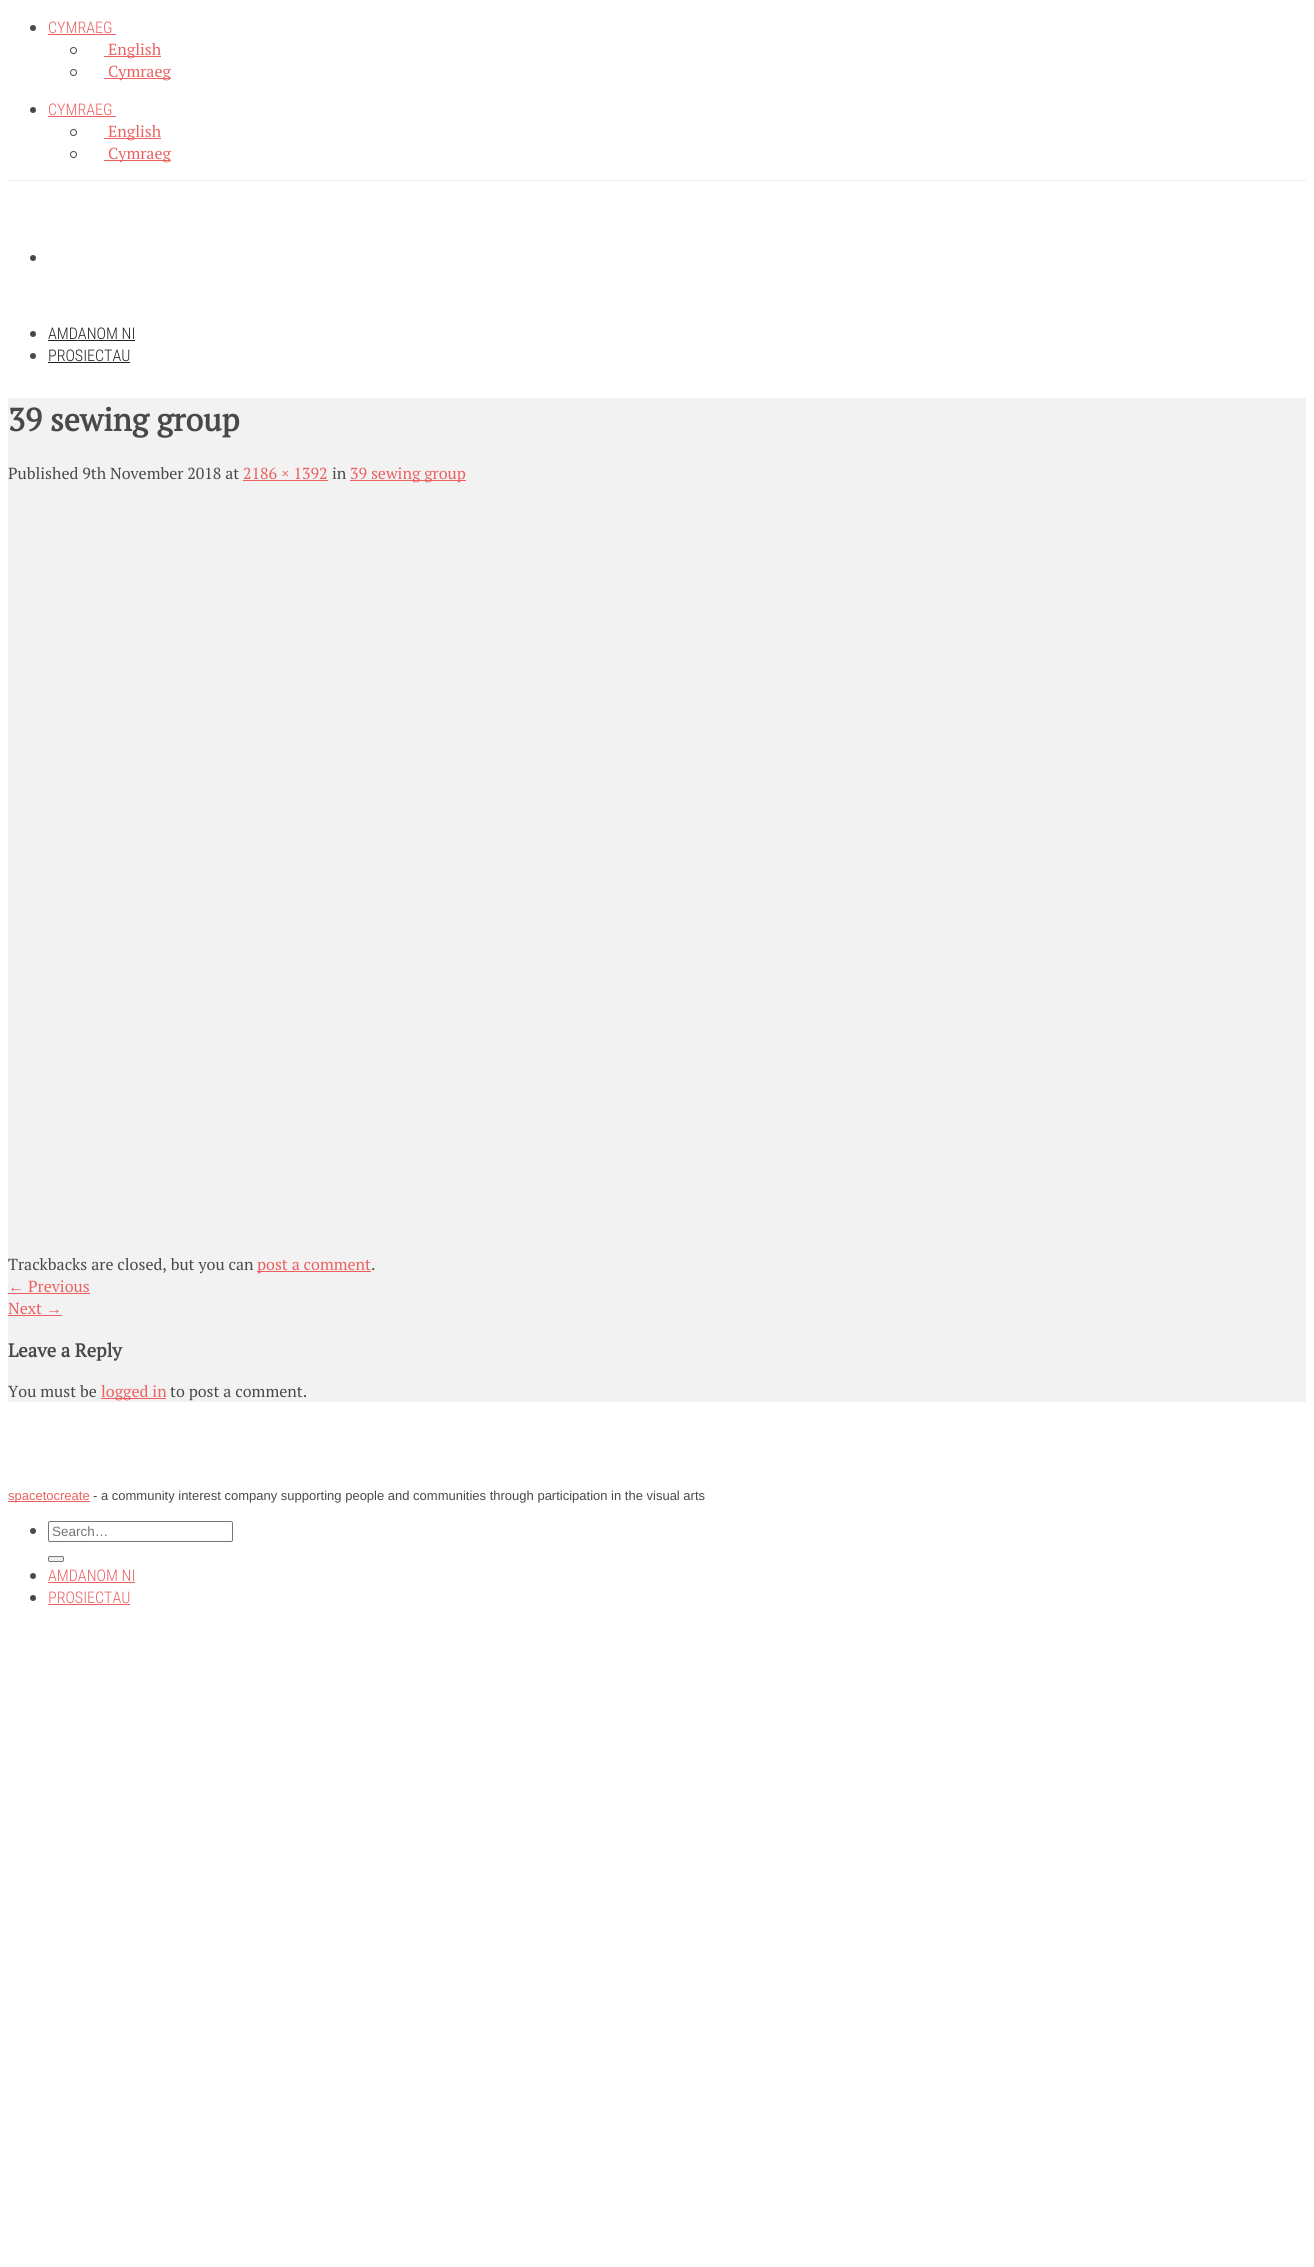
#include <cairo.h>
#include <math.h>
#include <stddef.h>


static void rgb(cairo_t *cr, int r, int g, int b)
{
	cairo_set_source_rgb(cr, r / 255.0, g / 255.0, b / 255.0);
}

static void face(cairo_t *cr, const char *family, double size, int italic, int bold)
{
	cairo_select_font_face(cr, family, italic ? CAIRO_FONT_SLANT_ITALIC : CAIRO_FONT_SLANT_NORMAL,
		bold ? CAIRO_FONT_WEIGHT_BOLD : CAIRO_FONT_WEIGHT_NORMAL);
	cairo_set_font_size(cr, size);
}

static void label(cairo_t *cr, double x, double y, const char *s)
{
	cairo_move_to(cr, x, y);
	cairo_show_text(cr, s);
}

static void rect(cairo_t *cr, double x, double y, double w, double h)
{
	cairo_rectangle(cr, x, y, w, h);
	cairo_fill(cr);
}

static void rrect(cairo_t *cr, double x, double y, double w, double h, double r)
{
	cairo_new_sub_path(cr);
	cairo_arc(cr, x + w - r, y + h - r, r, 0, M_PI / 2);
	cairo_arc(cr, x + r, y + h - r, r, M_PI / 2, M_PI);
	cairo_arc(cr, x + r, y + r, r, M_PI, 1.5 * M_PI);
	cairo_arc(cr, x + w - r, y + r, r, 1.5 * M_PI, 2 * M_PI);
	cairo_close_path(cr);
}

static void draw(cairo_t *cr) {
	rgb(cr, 255, 255, 255);
	cairo_paint(cr);
	rgb(cr, 239, 239, 239);
	rect(cr, 8, 180, 1298, 1);
	rgb(cr, 73, 73, 73);
	cairo_arc(cr, 33, 28, 3, 0, 2 * M_PI);
	cairo_fill(cr);
	face(cr, "Roboto Condensed Light", 16, 0, 0);
	rgb(cr, 236, 96, 96);
	label(cr, 48, 33, "CYMRAEG");
	rect(cr, 48, 34, 68, 1);
	cairo_new_path(cr);
	cairo_arc(cr, 73.5, 50.5, 3, 0, 2 * M_PI);
	rgb(cr, 73, 73, 73);
	cairo_set_line_width(cr, 1);
	cairo_stroke(cr);
	rgb(cr, 236, 96, 96);
	rect(cr, 104, 56, 57, 1);
	face(cr, "PT Serif", 16, 0, 0);
	label(cr, 108, 55, "English");
	cairo_new_path(cr);
	cairo_arc(cr, 73.5, 72.5, 3, 0, 2 * M_PI);
	rgb(cr, 73, 73, 73);
	cairo_stroke(cr);
	rgb(cr, 236, 96, 96);
	rect(cr, 104, 78, 67, 1);
	label(cr, 108, 77, "Cymraeg");
	rgb(cr, 73, 73, 73);
	cairo_new_path(cr);
	cairo_arc(cr, 33, 110, 3, 0, 2 * M_PI);
	cairo_fill(cr);
	face(cr, "Roboto Condensed Light", 16, 0, 0);
	rgb(cr, 236, 96, 96);
	label(cr, 48, 115, "CYMRAEG");
	rect(cr, 48, 116, 68, 1);
	cairo_new_path(cr);
	cairo_arc(cr, 73.5, 132.5, 3, 0, 2 * M_PI);
	rgb(cr, 73, 73, 73);
	cairo_stroke(cr);
	rgb(cr, 236, 96, 96);
	rect(cr, 104, 138, 57, 1);
	face(cr, "PT Serif", 16, 0, 0);
	label(cr, 108, 137, "English");
	cairo_new_path(cr);
	cairo_arc(cr, 73.5, 154.5, 3, 0, 2 * M_PI);
	rgb(cr, 73, 73, 73);
	cairo_stroke(cr);
	rgb(cr, 236, 96, 96);
	rect(cr, 104, 160, 67, 1);
	label(cr, 108, 159, "Cymraeg");
	rgb(cr, 73, 73, 73);
	cairo_new_path(cr);
	cairo_arc(cr, 33, 258, 3, 0, 2 * M_PI);
	cairo_fill(cr);
	cairo_arc(cr, 33, 334, 3, 0, 2 * M_PI);
	cairo_fill(cr);
	face(cr, "Roboto Condensed Light", 16, 0, 0);
	rgb(cr, 35, 35, 35);
	label(cr, 48, 339, "AMDANOM NI");
	rect(cr, 48, 340, 87, 1);
	rgb(cr, 73, 73, 73);
	cairo_new_path(cr);
	cairo_arc(cr, 33, 356, 3, 0, 2 * M_PI);
	cairo_fill(cr);
	rgb(cr, 35, 35, 35);
	label(cr, 48, 361, "PROSIECTAU");
	rect(cr, 48, 362, 82, 1);
	rgb(cr, 242, 242, 242);
	rect(cr, 8, 398, 1298, 1004);
	face(cr, "PT Serif", 32, 0, 1);
	rgb(cr, 73, 73, 73);
	label(cr, 8, 431, "39 sewing group");
	face(cr, "PT Serif", 16, 0, 0);
	label(cr, 8, 479, "Published 9th November 2018 at");
	rgb(cr, 236, 96, 96);
	label(cr, 243, 479, "2186 × 1392");
	rect(cr, 243, 480, 85, 1);
	rgb(cr, 73, 73, 73);
	label(cr, 332, 479, "in");
	rgb(cr, 236, 96, 96);
	rect(cr, 350, 480, 116, 1);
	label(cr, 350, 479, "39 sewing group");
	rgb(cr, 73, 73, 73);
	label(cr, 8, 1270, "Trackbacks are closed, but you can");
	rgb(cr, 236, 96, 96);
	rect(cr, 257, 1271, 114, 1);
	label(cr, 257, 1270, "post a comment");
	rgb(cr, 73, 73, 73);
	label(cr, 371, 1270, ".");
	face(cr, "Liberation Sans", 16, 0, 0);
	rgb(cr, 236, 96, 96);
	label(cr, 8, 1292, "←");
	rect(cr, 8, 1293, 82, 1);
	face(cr, "PT Serif", 16, 0, 0);
	label(cr, 28, 1292, "Previous");
	label(cr, 8, 1314, "Next");
	face(cr, "Liberation Sans", 16, 0, 0);
	label(cr, 46, 1314, "→");
	rect(cr, 8, 1315, 54, 1);
	face(cr, "PT Serif", 18.75, 0, 1);
	rgb(cr, 73, 73, 73);
	label(cr, 8, 1357, "Leave a Reply");
	face(cr, "PT Serif", 16, 0, 0);
	label(cr, 8, 1397, "You must be");
	rgb(cr, 236, 96, 96);
	rect(cr, 101, 1398, 65, 1);
	label(cr, 101, 1397, "logged in");
	rgb(cr, 73, 73, 73);
	label(cr, 170, 1397, "to post a comment.");
	rgb(cr, 236, 96, 96);
	rect(cr, 8, 1501, 82, 1);
	face(cr, "Liberation Sans", 13, 0, 0);
	label(cr, 8, 1500, "spacetocreate");
	rgb(cr, 73, 73, 73);
	label(cr, 93, 1500, "- a community interest company supporting people and communities through participation in the visual arts");
	cairo_new_path(cr);
	cairo_arc(cr, 33, 1531, 3, 0, 2 * M_PI);
	cairo_fill(cr);
	rrect(cr, 48.5, 1521.5, 184, 20, 1.5);
	rgb(cr, 118, 118, 118);
	cairo_stroke(cr);
	face(cr, "Liberation Sans", 13.5, 0, 0);
	rgb(cr, 117, 117, 117);
	label(cr, 52, 1536, "Search…");
	rgb(cr, 239, 239, 239);
	rrect(cr, 48.5, 1556.5, 15, 5, 1.5);
	cairo_fill_preserve(cr);
	rgb(cr, 118, 118, 118);
	cairo_stroke(cr);
	rgb(cr, 73, 73, 73);
	cairo_arc(cr, 33, 1576, 3, 0, 2 * M_PI);
	cairo_fill(cr);
	face(cr, "Roboto Condensed Light", 16, 0, 0);
	rgb(cr, 236, 96, 96);
	label(cr, 48, 1581, "AMDANOM NI");
	rect(cr, 48, 1582, 87, 1);
	rgb(cr, 73, 73, 73);
	cairo_new_path(cr);
	cairo_arc(cr, 33, 1598, 3, 0, 2 * M_PI);
	cairo_fill(cr);
	rgb(cr, 236, 96, 96);
	label(cr, 48, 1603, "PROSIECTAU");
	rect(cr, 48, 1604, 82, 1);
}

int main(void) {
	cairo_surface_t *surface = cairo_image_surface_create(CAIRO_FORMAT_RGB24, 1314, 2267);
	cairo_t *cr = cairo_create(surface);
	cairo_font_options_t *options = cairo_font_options_create();
	cairo_font_options_set_hint_metrics(options, CAIRO_HINT_METRICS_OFF);
	cairo_font_options_set_hint_style(options, CAIRO_HINT_STYLE_NONE);
	cairo_set_font_options(cr, options);
	cairo_set_miter_limit(cr, 4);
	draw(cr);
	cairo_surface_write_to_png(surface, "render.png");
	cairo_font_options_destroy(options);
	cairo_destroy(cr);
	cairo_surface_destroy(surface);
	return 0;
}
